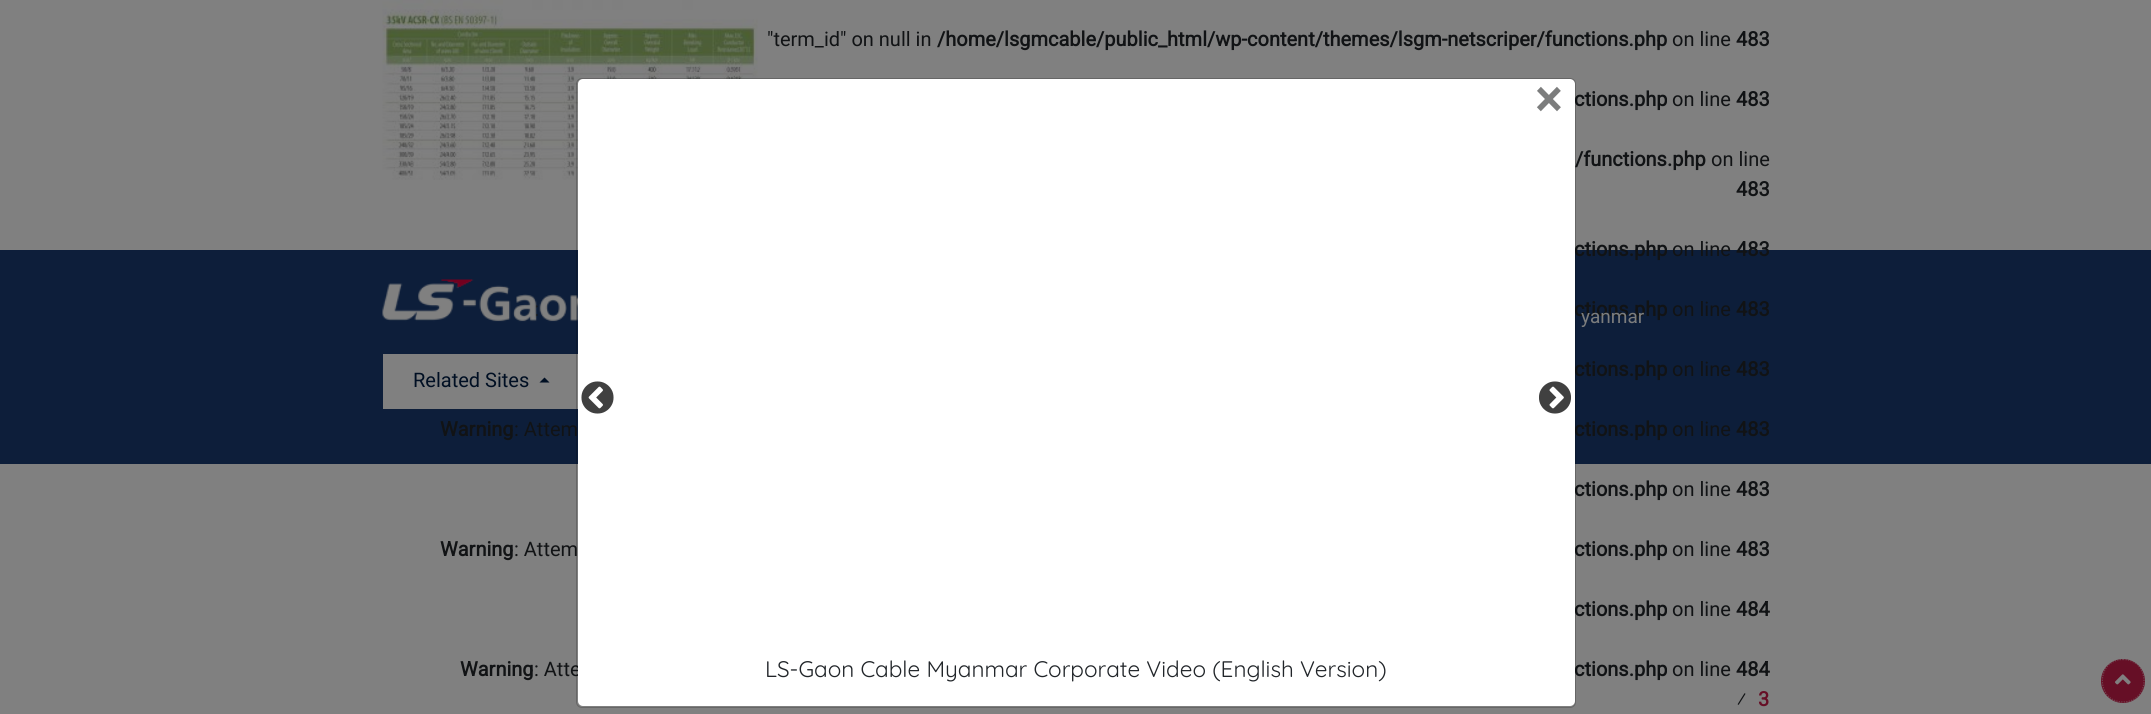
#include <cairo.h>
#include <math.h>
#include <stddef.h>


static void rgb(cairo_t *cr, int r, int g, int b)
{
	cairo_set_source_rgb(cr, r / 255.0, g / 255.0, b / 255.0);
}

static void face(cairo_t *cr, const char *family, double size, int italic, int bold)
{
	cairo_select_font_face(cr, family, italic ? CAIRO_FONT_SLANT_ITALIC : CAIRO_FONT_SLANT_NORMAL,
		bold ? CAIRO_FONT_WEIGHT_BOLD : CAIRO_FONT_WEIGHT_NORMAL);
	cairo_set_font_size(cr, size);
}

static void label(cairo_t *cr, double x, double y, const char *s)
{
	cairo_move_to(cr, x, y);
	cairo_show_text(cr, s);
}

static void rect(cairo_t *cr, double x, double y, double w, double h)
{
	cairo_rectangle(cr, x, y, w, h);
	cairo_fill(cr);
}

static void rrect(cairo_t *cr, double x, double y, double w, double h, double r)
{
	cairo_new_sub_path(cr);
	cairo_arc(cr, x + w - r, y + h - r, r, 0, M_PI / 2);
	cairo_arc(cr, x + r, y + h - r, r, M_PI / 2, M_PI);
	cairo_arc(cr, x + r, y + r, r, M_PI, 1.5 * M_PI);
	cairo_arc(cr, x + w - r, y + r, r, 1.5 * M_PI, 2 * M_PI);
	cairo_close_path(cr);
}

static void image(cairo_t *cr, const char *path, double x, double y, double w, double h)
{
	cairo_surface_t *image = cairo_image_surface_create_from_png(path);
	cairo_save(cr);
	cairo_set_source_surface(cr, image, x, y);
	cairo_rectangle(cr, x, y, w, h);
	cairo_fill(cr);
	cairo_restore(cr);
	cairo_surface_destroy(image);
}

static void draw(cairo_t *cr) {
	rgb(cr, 128, 128, 128);
	cairo_paint(cr);
	image(cr, "image0.png", 382, 0, 376, 180);
	face(cr, "Roboto", 20, 0, 0);
	rgb(cr, 17, 19, 21);
	label(cr, 767, 46, "\"term_id\" on null in");
	face(cr, "Roboto", 20, 0, 1);
	label(cr, 937, 46, "/home/lsgmcable/public_html/wp-content/themes/lsgm-netscriper/functions.php");
	face(cr, "Roboto", 20, 0, 0);
	label(cr, 1672, 46, "on line");
	face(cr, "Roboto", 20, 0, 1);
	label(cr, 1736, 46, "483");
	label(cr, 1574, 106, "ctions.php");
	face(cr, "Roboto", 20, 0, 0);
	label(cr, 1672, 106, "on line");
	face(cr, "Roboto", 20, 0, 1);
	label(cr, 1736, 106, "483");
	label(cr, 1575, 166, "/functions.php");
	face(cr, "Roboto", 20, 0, 0);
	label(cr, 1711, 166, "on line");
	face(cr, "Roboto", 20, 0, 1);
	label(cr, 1736, 196, "483");
	rgb(cr, 13, 30, 58);
	rect(cr, 0, 250, 2151, 214);
	rgb(cr, 17, 19, 21);
	label(cr, 1574, 256, "ctions.php");
	face(cr, "Roboto", 20, 0, 0);
	label(cr, 1672, 256, "on line");
	face(cr, "Roboto", 20, 0, 1);
	label(cr, 1736, 256, "483");
	face(cr, "Roboto", 20, 0, 0);
	label(cr, 534, 316, ":");
	face(cr, "Roboto", 20, 0, 1);
	label(cr, 1574, 316, "ctions.php");
	face(cr, "Roboto", 20, 0, 0);
	label(cr, 1672, 316, "on line");
	face(cr, "Roboto", 20, 0, 1);
	label(cr, 1736, 316, "483");
	label(cr, 1574, 376, "ctions.php");
	face(cr, "Roboto", 20, 0, 0);
	label(cr, 1672, 376, "on line");
	face(cr, "Roboto", 20, 0, 1);
	label(cr, 1736, 376, "483");
	label(cr, 440, 436, "Warning");
	face(cr, "Roboto", 20, 0, 0);
	label(cr, 514, 436, ": Attem");
	face(cr, "Roboto", 20, 0, 1);
	label(cr, 1574, 436, "ctions.php");
	face(cr, "Roboto", 20, 0, 0);
	label(cr, 1672, 436, "on line");
	face(cr, "Roboto", 20, 0, 1);
	label(cr, 1736, 436, "483");
	label(cr, 1574, 496, "ctions.php");
	face(cr, "Roboto", 20, 0, 0);
	label(cr, 1672, 496, "on line");
	face(cr, "Roboto", 20, 0, 1);
	label(cr, 1736, 496, "483");
	label(cr, 440, 556, "Warning");
	face(cr, "Roboto", 20, 0, 0);
	label(cr, 514, 556, ": Attem");
	face(cr, "Roboto", 20, 0, 1);
	label(cr, 1574, 556, "ctions.php");
	face(cr, "Roboto", 20, 0, 0);
	label(cr, 1672, 556, "on line");
	face(cr, "Roboto", 20, 0, 1);
	label(cr, 1736, 556, "483");
	label(cr, 1574, 616, "ctions.php");
	face(cr, "Roboto", 20, 0, 0);
	label(cr, 1672, 616, "on line");
	face(cr, "Roboto", 20, 0, 1);
	label(cr, 1736, 616, "484");
	label(cr, 460, 676, "Warning");
	face(cr, "Roboto", 20, 0, 0);
	label(cr, 534, 676, ": Atte");
	face(cr, "Roboto", 20, 0, 1);
	label(cr, 1574, 676, "ctions.php");
	face(cr, "Roboto", 20, 0, 0);
	label(cr, 1672, 676, "on line");
	face(cr, "Roboto", 20, 0, 1);
	label(cr, 1736, 676, "484");
	face(cr, "Roboto", 20, 0, 0);
	label(cr, 1737, 706, "⁄");
	face(cr, "Roboto", 20, 0, 1);
	rgb(cr, 102, 15, 38);
	label(cr, 1758, 706, "3");
	rgb(cr, 255, 255, 255);
	rrect(cr, 578, 79, 997, 627, 5);
	cairo_fill(cr);
	image(cr, "image3.png", 382, 279, 196, 43);
	rgb(cr, 128, 128, 128);
	rect(cr, 383, 354, 195, 55);
	rrect(cr, 576.5, 78.5, 999, 629, 5.5);
	cairo_set_source_rgba(cr, 0, 0, 0, 0.2);
	cairo_set_line_width(cr, 1);
	cairo_stroke(cr);
	face(cr, "Roboto", 50, 0, 1);
	rgb(cr, 124, 125, 125);
	label(cr, 1535, 116, "×");
	image(cr, "image1.png", 581, 381, 33, 33);
	image(cr, "image2.png", 1539, 381, 32, 33);
	face(cr, "Quicksand", 22.5, 0, 0);
	rgb(cr, 33, 37, 41);
	label(cr, 765, 677, "LS-Gaon Cable Myanmar Corporate Video (English Version)");
	face(cr, "Roboto", 19, 0, 0);
	rgb(cr, 124, 125, 125);
	label(cr, 1581, 323, "yanmar");
	face(cr, "Roboto", 20, 0, 0);
	rgb(cr, 0, 15, 35);
	label(cr, 413, 387, "Related Sites");
	cairo_new_path(cr);
	cairo_move_to(cr, 549.5, 382.5);
	cairo_line_to(cr, 539.5, 382.5);
	cairo_line_to(cr, 544.5, 377.5);
	cairo_close_path(cr);
	cairo_fill(cr);
	rgb(cr, 102, 15, 38);
	cairo_arc(cr, 2123, 681, 22, 0, 2 * M_PI);
	cairo_fill(cr);
	cairo_new_path(cr);
	cairo_move_to(cr, 2123, 659.5);
	cairo_curve_to(cr, 2151, 659.5, 2151, 702, 2123, 702);
	cairo_curve_to(cr, 2095.5, 702, 2095.5, 659.5, 2123, 659.5);
	cairo_close_path(cr);
	cairo_set_source_rgba(cr, 0.502, 0.502, 0.502, 0.48);
	cairo_set_line_width(cr, 1.2);
	cairo_set_dash(cr, (double[]){1.25, 1.25}, 2, 0);
	cairo_stroke(cr);
	image(cr, "image4.png", 2115, 674, 16, 11);
}

int main(void) {
	cairo_surface_t *surface = cairo_image_surface_create(CAIRO_FORMAT_RGB24, 2151, 714);
	cairo_t *cr = cairo_create(surface);
	cairo_font_options_t *options = cairo_font_options_create();
	cairo_font_options_set_hint_metrics(options, CAIRO_HINT_METRICS_OFF);
	cairo_font_options_set_hint_style(options, CAIRO_HINT_STYLE_NONE);
	cairo_set_font_options(cr, options);
	cairo_set_miter_limit(cr, 4);
	draw(cr);
	cairo_surface_write_to_png(surface, "render.png");
	cairo_font_options_destroy(options);
	cairo_destroy(cr);
	cairo_surface_destroy(surface);
	return 0;
}
